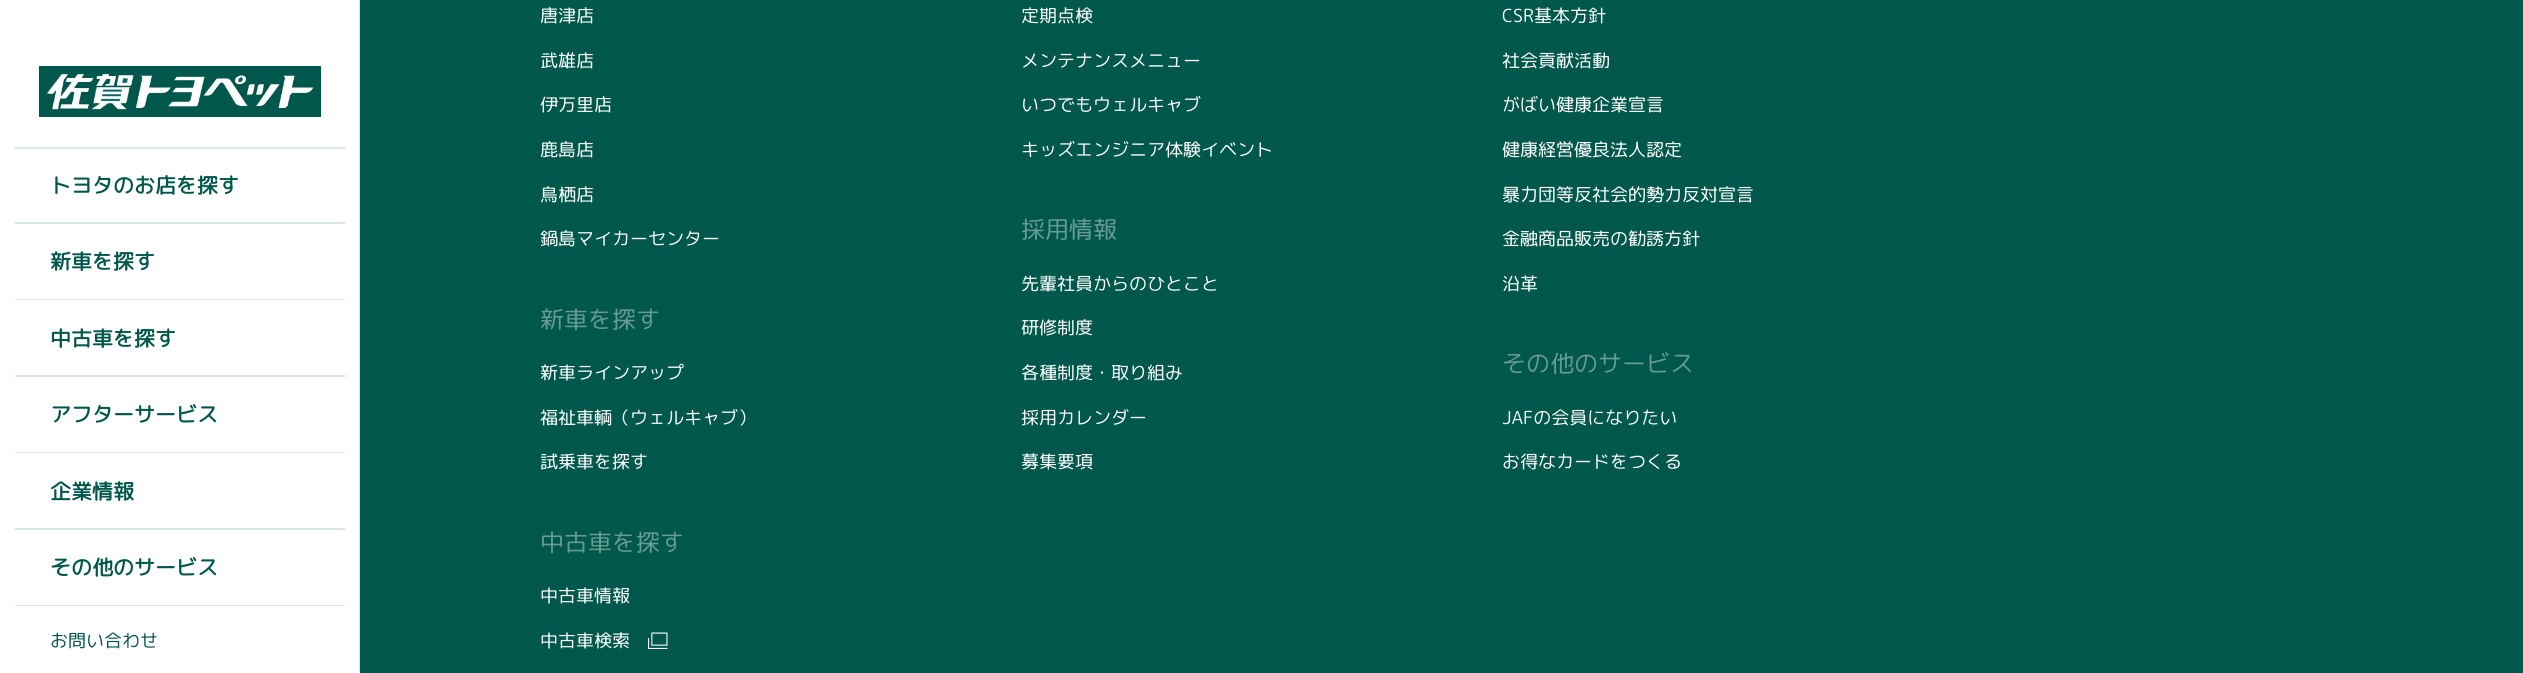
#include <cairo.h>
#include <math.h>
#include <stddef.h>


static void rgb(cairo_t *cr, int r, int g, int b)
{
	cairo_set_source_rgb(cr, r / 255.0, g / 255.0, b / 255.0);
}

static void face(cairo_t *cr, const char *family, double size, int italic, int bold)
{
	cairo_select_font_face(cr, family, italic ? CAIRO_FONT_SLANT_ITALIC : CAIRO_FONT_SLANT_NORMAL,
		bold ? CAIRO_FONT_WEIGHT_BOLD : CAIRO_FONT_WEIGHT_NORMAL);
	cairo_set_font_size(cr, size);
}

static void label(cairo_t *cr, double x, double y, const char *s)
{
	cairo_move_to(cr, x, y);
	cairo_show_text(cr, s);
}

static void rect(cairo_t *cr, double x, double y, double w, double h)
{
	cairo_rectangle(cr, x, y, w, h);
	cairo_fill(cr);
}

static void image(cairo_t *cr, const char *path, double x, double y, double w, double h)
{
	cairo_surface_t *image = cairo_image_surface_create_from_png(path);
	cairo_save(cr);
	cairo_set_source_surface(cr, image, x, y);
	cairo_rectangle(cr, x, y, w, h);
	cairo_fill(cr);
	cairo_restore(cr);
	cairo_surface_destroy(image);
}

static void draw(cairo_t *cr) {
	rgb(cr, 255, 255, 255);
	cairo_paint(cr);
	rgb(cr, 217, 230, 228);
	rect(cr, 359, 0, 1, 673);
	image(cr, "image0.png", 39, 66, 282, 51);
	rect(cr, 15, 147, 330, 2);
	face(cr, "Rounded Mplus 1c", 21, 0, 1);
	rgb(cr, 0, 87, 75);
	label(cr, 50, 193, "トヨタのお店を探す");
	rgb(cr, 217, 230, 228);
	rect(cr, 15, 222, 330, 2);
	rgb(cr, 0, 87, 75);
	label(cr, 50, 269, "新車を探す");
	rgb(cr, 217, 230, 228);
	rect(cr, 15, 299, 330, 1);
	rgb(cr, 0, 87, 75);
	label(cr, 50, 346, "中古車を探す");
	rgb(cr, 217, 230, 228);
	rect(cr, 15, 375, 330, 2);
	rgb(cr, 0, 87, 75);
	label(cr, 50, 422, "アフターサービス");
	rgb(cr, 217, 230, 228);
	rect(cr, 15, 452, 330, 1);
	rgb(cr, 0, 87, 75);
	label(cr, 50, 499, "企業情報");
	rgb(cr, 217, 230, 228);
	rect(cr, 15, 528, 330, 2);
	rgb(cr, 0, 87, 75);
	label(cr, 50, 575, "その他のサービス");
	rgb(cr, 217, 230, 228);
	rect(cr, 15, 605, 330, 1);
	face(cr, "Rounded Mplus 1c", 18, 0, 0);
	rgb(cr, 0, 87, 75);
	label(cr, 50, 647, "お問い合わせ");
	rect(cr, 360, 0, 2163, 673);
	rgb(cr, 255, 255, 255);
	label(cr, 540, 22, "唐津店");
	label(cr, 540, 67, "武雄店");
	label(cr, 540, 111, "伊万里店");
	label(cr, 540, 156, "鹿島店");
	label(cr, 540, 201, "鳥栖店");
	label(cr, 540, 245, "鍋島マイカーセンター");
	face(cr, "Rounded Mplus 1c", 24, 0, 0);
	rgb(cr, 102, 154, 147);
	label(cr, 540, 328, "新車を探す");
	face(cr, "Rounded Mplus 1c", 18, 0, 0);
	rgb(cr, 255, 255, 255);
	label(cr, 540, 379, "新車ラインアップ");
	label(cr, 540, 424, "福祉車輌（ウェルキャブ）");
	label(cr, 540, 468, "試乗車を探す");
	face(cr, "Rounded Mplus 1c", 24, 0, 0);
	rgb(cr, 102, 154, 147);
	label(cr, 540, 551, "中古車を探す");
	face(cr, "Rounded Mplus 1c", 18, 0, 0);
	rgb(cr, 255, 255, 255);
	label(cr, 540, 602, "中古車情報");
	label(cr, 540, 647, "中古車検索");
	image(cr, "image1.png", 648, 632, 20, 17);
	label(cr, 1021, 22, "定期点検");
	label(cr, 1021, 67, "メンテナンスメニュー");
	label(cr, 1021, 111, "いつでもウェルキャブ");
	label(cr, 1021, 156, "キッズエンジニア体験イベント");
	face(cr, "Rounded Mplus 1c", 24, 0, 0);
	rgb(cr, 102, 154, 147);
	label(cr, 1021, 238, "採用情報");
	face(cr, "Rounded Mplus 1c", 18, 0, 0);
	rgb(cr, 255, 255, 255);
	label(cr, 1021, 290, "先輩社員からのひとこと");
	label(cr, 1021, 334, "研修制度");
	label(cr, 1021, 379, "各種制度・取り組み");
	label(cr, 1021, 424, "採用カレンダー");
	label(cr, 1021, 468, "募集要項");
	label(cr, 1502, 22, "CSR基本方針");
	label(cr, 1502, 67, "社会貢献活動");
	label(cr, 1502, 111, "がばい健康企業宣言");
	label(cr, 1502, 156, "健康経営優良法人認定");
	label(cr, 1502, 201, "暴力団等反社会的勢力反対宣言");
	label(cr, 1502, 245, "金融商品販売の勧誘方針");
	label(cr, 1502, 290, "沿革");
	face(cr, "Rounded Mplus 1c", 24, 0, 0);
	rgb(cr, 102, 154, 147);
	label(cr, 1502, 372, "その他のサービス");
	face(cr, "Rounded Mplus 1c", 18, 0, 0);
	rgb(cr, 255, 255, 255);
	label(cr, 1502, 424, "JAFの会員になりたい");
	label(cr, 1502, 468, "お得なカードをつくる");
}

int main(void) {
	cairo_surface_t *surface = cairo_image_surface_create(CAIRO_FORMAT_RGB24, 2523, 673);
	cairo_t *cr = cairo_create(surface);
	cairo_font_options_t *options = cairo_font_options_create();
	cairo_font_options_set_hint_metrics(options, CAIRO_HINT_METRICS_OFF);
	cairo_font_options_set_hint_style(options, CAIRO_HINT_STYLE_NONE);
	cairo_set_font_options(cr, options);
	cairo_set_miter_limit(cr, 4);
	draw(cr);
	cairo_surface_write_to_png(surface, "render.png");
	cairo_font_options_destroy(options);
	cairo_destroy(cr);
	cairo_surface_destroy(surface);
	return 0;
}
